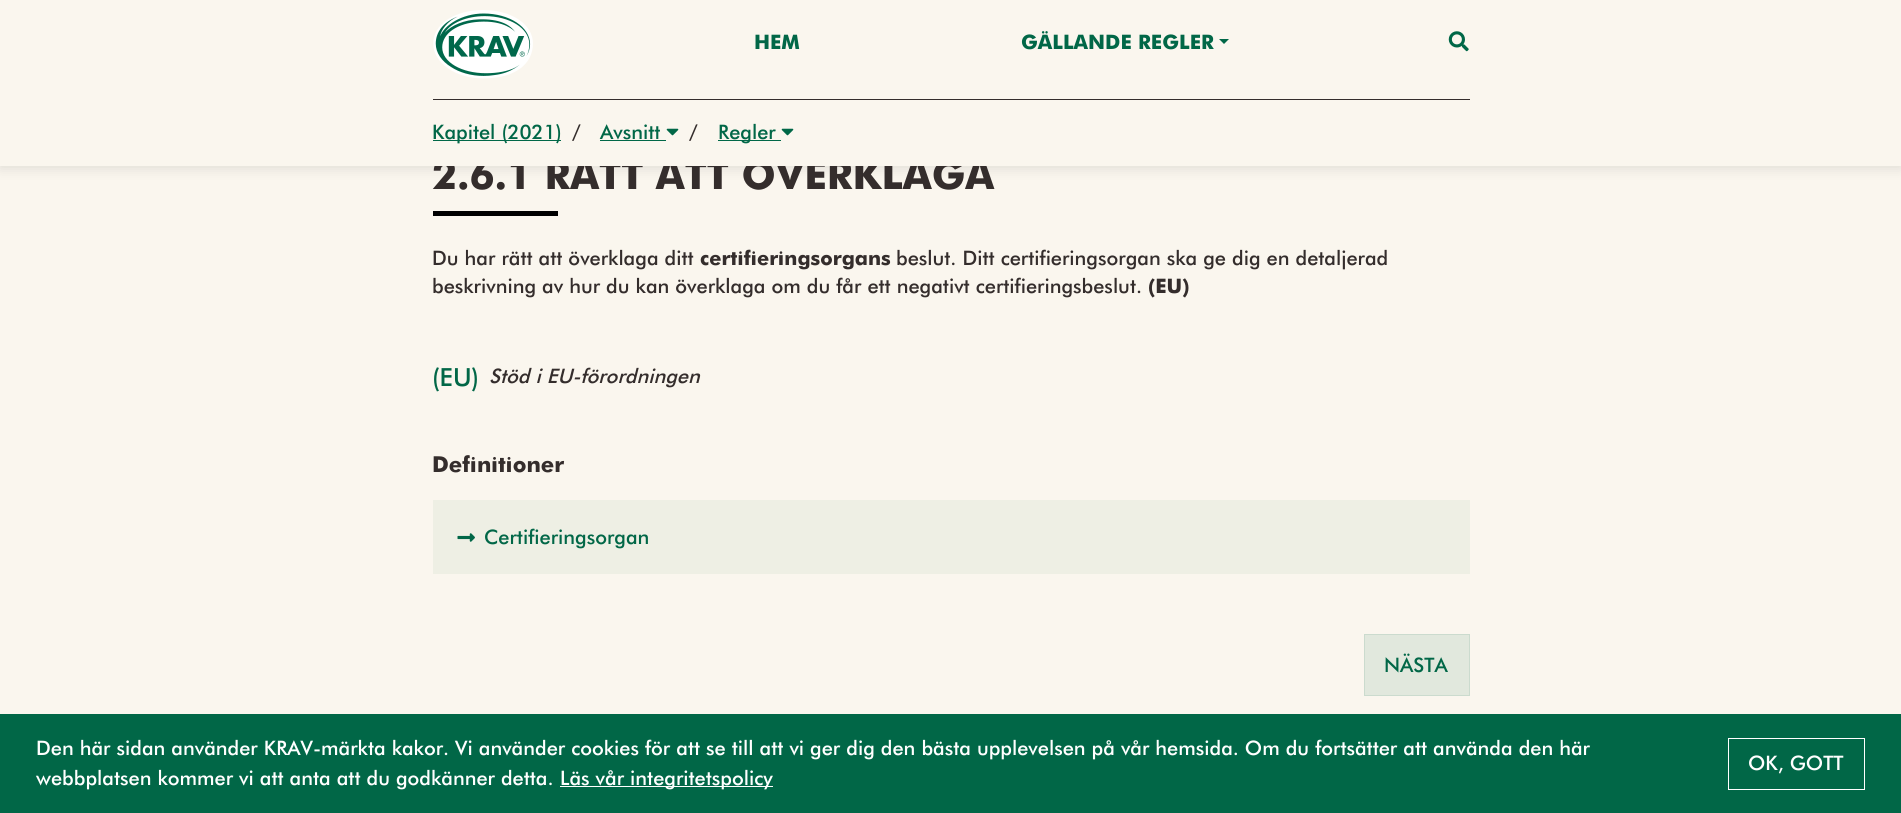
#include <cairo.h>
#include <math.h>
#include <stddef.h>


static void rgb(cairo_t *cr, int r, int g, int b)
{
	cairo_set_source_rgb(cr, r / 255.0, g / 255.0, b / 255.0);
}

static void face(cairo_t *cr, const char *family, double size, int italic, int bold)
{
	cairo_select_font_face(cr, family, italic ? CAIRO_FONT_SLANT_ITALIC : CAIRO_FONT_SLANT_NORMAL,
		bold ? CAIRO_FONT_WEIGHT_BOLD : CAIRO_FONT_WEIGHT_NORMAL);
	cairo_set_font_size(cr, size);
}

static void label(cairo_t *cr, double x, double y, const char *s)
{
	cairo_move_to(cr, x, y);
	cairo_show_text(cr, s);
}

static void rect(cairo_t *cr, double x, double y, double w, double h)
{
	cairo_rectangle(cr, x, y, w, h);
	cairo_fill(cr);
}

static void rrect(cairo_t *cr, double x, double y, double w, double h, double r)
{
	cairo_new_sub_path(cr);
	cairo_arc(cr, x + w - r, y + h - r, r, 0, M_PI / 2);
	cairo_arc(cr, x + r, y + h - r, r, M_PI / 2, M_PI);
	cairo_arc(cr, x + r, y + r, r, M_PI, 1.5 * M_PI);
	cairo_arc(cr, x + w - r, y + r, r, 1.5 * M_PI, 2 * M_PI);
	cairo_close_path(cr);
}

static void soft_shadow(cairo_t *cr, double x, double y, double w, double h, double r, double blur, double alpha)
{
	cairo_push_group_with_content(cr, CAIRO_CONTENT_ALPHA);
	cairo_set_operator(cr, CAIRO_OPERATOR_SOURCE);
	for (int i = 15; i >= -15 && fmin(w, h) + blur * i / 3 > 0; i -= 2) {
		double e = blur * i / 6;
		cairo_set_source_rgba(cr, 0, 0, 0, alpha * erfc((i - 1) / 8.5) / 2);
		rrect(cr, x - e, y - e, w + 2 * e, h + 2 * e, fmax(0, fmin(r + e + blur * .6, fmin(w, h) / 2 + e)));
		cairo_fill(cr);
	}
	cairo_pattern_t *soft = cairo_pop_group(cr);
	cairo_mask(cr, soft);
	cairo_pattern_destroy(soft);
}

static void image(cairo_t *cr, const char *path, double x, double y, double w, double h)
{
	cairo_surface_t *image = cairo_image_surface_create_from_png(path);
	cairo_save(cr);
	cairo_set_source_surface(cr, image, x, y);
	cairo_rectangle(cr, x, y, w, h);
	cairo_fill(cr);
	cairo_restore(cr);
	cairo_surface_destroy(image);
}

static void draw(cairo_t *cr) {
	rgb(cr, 250, 246, 238);
	cairo_paint(cr);
	rgb(cr, 0, 0, 0);
	soft_shadow(cr, 0, 3, 1901, 166, 0, 6, 0.1);
	face(cr, "Futura", 40, 0, 1);
	rgb(cr, 52, 45, 44);
	label(cr, 432, 189, "2.6.1 RÄTT ATT ÖVERKLAGA");
	rgb(cr, 250, 246, 238);
	rect(cr, 0, 0, 1901, 166);
	rgb(cr, 52, 45, 44);
	rect(cr, 433, 99, 1037, 1);
	image(cr, "image0.png", 433, 10, 100, 69);
	face(cr, "Futura", 20, 0, 1);
	rgb(cr, 1, 103, 71);
	label(cr, 754, 49, "HEM");
	label(cr, 1021, 49, "GÄLLANDE REGLER");
	rgb(cr, 0, 103, 71);
	cairo_new_path(cr);
	cairo_move_to(cr, 1219, 39);
	cairo_line_to(cr, 1229, 39);
	cairo_line_to(cr, 1224, 44);
	cairo_close_path(cr);
	cairo_fill(cr);
	image(cr, "image1.png", 1448, 31, 21, 21);
	rect(cr, 433, 140, 128, 1);
	face(cr, "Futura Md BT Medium", 20, 0, 0);
	rgb(cr, 1, 103, 71);
	label(cr, 432, 139, "Kapitel (2021)");
	rgb(cr, 52, 45, 44);
	label(cr, 572, 139, "/");
	rgb(cr, 1, 103, 71);
	label(cr, 600, 139, "Avsnitt");
	rgb(cr, 0, 103, 71);
	rect(cr, 600, 140, 66, 1);
	image(cr, "image2.png", 666, 128, 13, 8);
	rgb(cr, 52, 45, 44);
	label(cr, 689, 139, "/");
	rgb(cr, 0, 103, 71);
	rect(cr, 718, 140, 63, 1);
	rgb(cr, 1, 103, 71);
	label(cr, 718, 139, "Regler");
	image(cr, "image2.png", 781, 128, 13, 8);
	rgb(cr, 0, 0, 0);
	rect(cr, 433, 211, 125, 5);
	rgb(cr, 52, 45, 44);
	label(cr, 432, 265, "Du har rätt att överklaga ditt");
	face(cr, "Futura", 20, 0, 1);
	label(cr, 700, 265, "certifieringsorgans");
	face(cr, "Futura Md BT Medium", 20, 0, 0);
	label(cr, 896, 265, "beslut. Ditt certifieringsorgan ska ge dig en detaljerad");
	label(cr, 432, 293, "beskrivning av hur du kan överklaga om du får ett negativt certifieringsbeslut.");
	face(cr, "Futura", 20, 0, 1);
	label(cr, 1148, 293, "(EU)");
	face(cr, "Futura Md BT Medium", 25, 0, 0);
	rgb(cr, 1, 103, 71);
	label(cr, 432, 386, "(EU)");
	face(cr, "Futura Md BT Medium", 20, 1, 0);
	rgb(cr, 52, 45, 44);
	label(cr, 489, 383, "Stöd i EU-förordningen");
	face(cr, "Futura", 22, 0, 1);
	label(cr, 432, 472, "Definitioner");
	rgb(cr, 238, 239, 228);
	rect(cr, 433, 500, 1037, 74);
	image(cr, "image3.png", 457, 533, 18, 9);
	face(cr, "Futura Md BT Medium", 20, 0, 0);
	rgb(cr, 1, 103, 71);
	label(cr, 484, 544, "Certifieringsorgan");
	rgb(cr, 225, 232, 221);
	cairo_rectangle(cr, 1364.5, 634.5, 105, 61);
	cairo_fill_preserve(cr);
	rgb(cr, 203, 219, 206);
	cairo_set_line_width(cr, 1);
	cairo_stroke(cr);
	rgb(cr, 1, 103, 71);
	label(cr, 1384, 672, "NÄSTA");
	rect(cr, 0, 714, 1901, 99);
	rgb(cr, 255, 255, 255);
	label(cr, 36, 755, "Den här sidan använder KRAV-märkta kakor. Vi använder cookies för att se till att vi ger dig den bästa upplevelsen på vår hemsida. Om du fortsätter att använda den här");
	label(cr, 36, 785, "webbplatsen kommer vi att anta att du godkänner detta.");
	rect(cr, 560, 786, 213, 1);
	label(cr, 560, 785, "Läs vår integritetspolicy");
	cairo_rectangle(cr, 1728.5, 738.5, 136, 51);
	cairo_stroke(cr);
	label(cr, 1748, 770, "OK, GOTT");
}

int main(void) {
	cairo_surface_t *surface = cairo_image_surface_create(CAIRO_FORMAT_RGB24, 1901, 813);
	cairo_t *cr = cairo_create(surface);
	cairo_font_options_t *options = cairo_font_options_create();
	cairo_font_options_set_hint_metrics(options, CAIRO_HINT_METRICS_OFF);
	cairo_font_options_set_hint_style(options, CAIRO_HINT_STYLE_NONE);
	cairo_set_font_options(cr, options);
	cairo_set_miter_limit(cr, 4);
	draw(cr);
	cairo_surface_write_to_png(surface, "render.png");
	cairo_font_options_destroy(options);
	cairo_destroy(cr);
	cairo_surface_destroy(surface);
	return 0;
}
